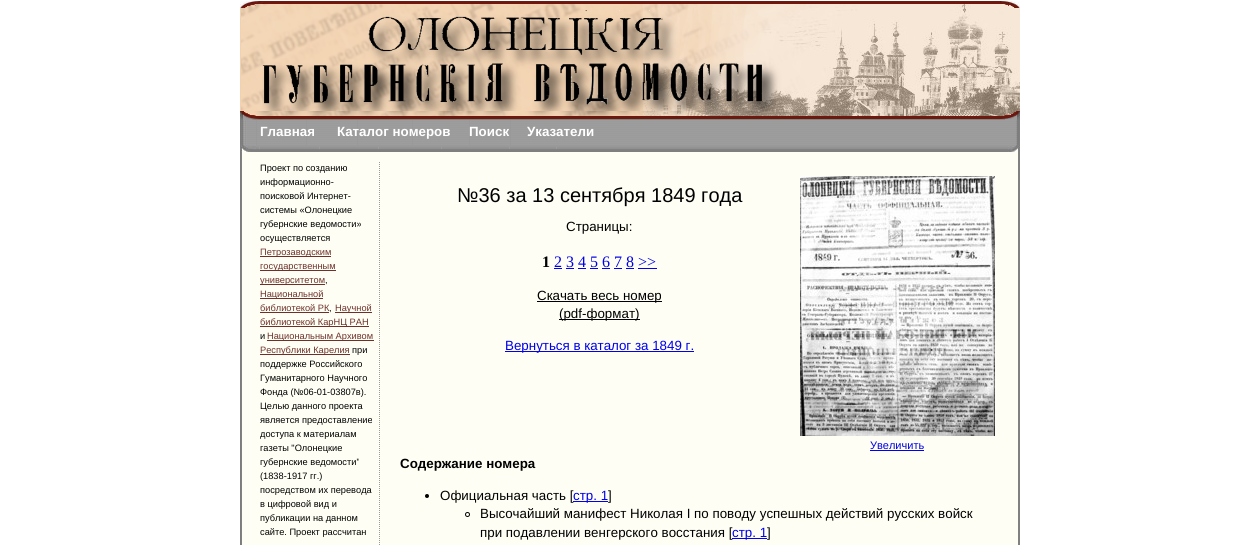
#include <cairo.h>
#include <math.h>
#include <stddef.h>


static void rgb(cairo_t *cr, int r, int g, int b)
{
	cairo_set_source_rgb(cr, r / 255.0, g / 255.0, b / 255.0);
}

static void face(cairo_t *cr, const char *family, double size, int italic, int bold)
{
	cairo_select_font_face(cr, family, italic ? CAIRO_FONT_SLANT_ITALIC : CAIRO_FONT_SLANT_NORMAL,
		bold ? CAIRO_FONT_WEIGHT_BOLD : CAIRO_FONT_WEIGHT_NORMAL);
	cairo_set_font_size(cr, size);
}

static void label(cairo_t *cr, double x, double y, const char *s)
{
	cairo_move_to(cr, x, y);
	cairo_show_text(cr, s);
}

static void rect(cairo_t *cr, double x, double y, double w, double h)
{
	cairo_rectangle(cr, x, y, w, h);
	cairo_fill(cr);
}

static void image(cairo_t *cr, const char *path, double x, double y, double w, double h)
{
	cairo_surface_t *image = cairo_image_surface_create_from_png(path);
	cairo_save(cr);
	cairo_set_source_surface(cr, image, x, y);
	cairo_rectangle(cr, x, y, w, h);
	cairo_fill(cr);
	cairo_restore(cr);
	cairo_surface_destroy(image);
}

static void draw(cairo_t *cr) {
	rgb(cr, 255, 255, 255);
	cairo_paint(cr);
	image(cr, "image0.png", 240, 1, 780, 7);
	image(cr, "image1.png", 240, 8, 780, 103);
	image(cr, "image2.png", 240, 111, 780, 9);
	image(cr, "image3.png", 240, 120, 780, 25);
	face(cr, "Liberation Sans", 13.35, 0, 1);
	rgb(cr, 255, 255, 255);
	label(cr, 260, 136, "Главная");
	label(cr, 337, 136, "Каталог номеров");
	label(cr, 469, 136, "Поиск");
	label(cr, 527, 136, "Указатели");
	image(cr, "image4.png", 240, 145, 780, 8);
	image(cr, "image5.png", 240, 153, 780, 392);
	cairo_new_path(cr);
	cairo_move_to(cr, 379.5, 162);
	cairo_line_to(cr, 379.5, 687);
	rgb(cr, 153, 153, 153);
	cairo_set_line_width(cr, 1);
	cairo_set_dash(cr, (double[]){1, 1}, 2, 0);
	cairo_stroke(cr);
	face(cr, "Liberation Sans", 9.25, 0, 0);
	rgb(cr, 0, 0, 0);
	label(cr, 260, 171, "Проект по созданию");
	label(cr, 260, 185, "информационно-");
	label(cr, 260, 199, "поисковой Интернет-");
	label(cr, 260, 213, "системы «Олонецкие");
	label(cr, 260, 227, "губернские ведомости»");
	label(cr, 260, 241, "осуществляется");
	rgb(cr, 110, 49, 42);
	rect(cr, 260, 256, 71, 1);
	label(cr, 260, 255, "Петрозаводским");
	rect(cr, 260, 270, 76, 1);
	label(cr, 260, 269, "государственным");
	rect(cr, 260, 284, 65, 1);
	label(cr, 260, 283, "университетом");
	rgb(cr, 0, 0, 0);
	label(cr, 325, 283, ",");
	rgb(cr, 110, 49, 42);
	rect(cr, 260, 298, 63, 1);
	label(cr, 260, 297, "Национальной");
	label(cr, 260, 311, "библиотекой РК");
	rect(cr, 260, 312, 69, 1);
	rgb(cr, 0, 0, 0);
	label(cr, 329, 311, ",");
	rgb(cr, 110, 49, 42);
	rect(cr, 335, 312, 37, 1);
	label(cr, 335, 311, "Научной");
	rect(cr, 260, 326, 109, 1);
	label(cr, 260, 325, "библиотекой КарНЦ РАН");
	rgb(cr, 0, 0, 0);
	label(cr, 260, 339, "и");
	rgb(cr, 110, 49, 42);
	rect(cr, 267, 340, 107, 1);
	label(cr, 267, 339, "Национальным Архивом");
	rect(cr, 260, 354, 90, 1);
	label(cr, 260, 353, "Республики Карелия");
	rgb(cr, 0, 0, 0);
	label(cr, 352, 353, "при");
	label(cr, 260, 367, "поддержке Российского");
	label(cr, 260, 381, "Гуманитарного Научного");
	label(cr, 260, 395, "Фонда (№06-01-03807в).");
	label(cr, 260, 409, "Целью данного проекта");
	label(cr, 260, 423, "является предоставление");
	label(cr, 260, 437, "доступа к материалам");
	label(cr, 260, 451, "газеты \"Олонецкие");
	label(cr, 260, 465, "губернские ведомости\"");
	label(cr, 260, 479, "(1838-1917 гг.)");
	label(cr, 260, 493, "посредством их перевода");
	label(cr, 260, 507, "в цифровой вид и");
	label(cr, 260, 521, "публикации на данном");
	label(cr, 260, 535, "сайте. Проект рассчитан");
	face(cr, "Liberation Sans", 20, 0, 0);
	label(cr, 457, 202, "№36 за 13 сентября 1849 года");
	face(cr, "Liberation Sans", 13.35, 0, 0);
	label(cr, 566, 231, "Страницы:");
	face(cr, "Liberation Serif", 16, 0, 1);
	label(cr, 542, 267, "1");
	face(cr, "Liberation Serif", 16, 0, 0);
	rgb(cr, 0, 0, 238);
	label(cr, 554, 267, "2 3 4 5 6 7 8 >>");
	rect(cr, 554, 268, 8, 1);
	rect(cr, 566, 268, 8, 1);
	rect(cr, 578, 268, 8, 1);
	rect(cr, 590, 268, 8, 1);
	rect(cr, 602, 268, 8, 1);
	rect(cr, 614, 268, 8, 1);
	rect(cr, 626, 268, 8, 1);
	rect(cr, 638, 268, 19, 1);
	rgb(cr, 0, 0, 0);
	rect(cr, 537, 301, 125, 1);
	face(cr, "Liberation Sans", 13.35, 0, 0);
	label(cr, 537, 300, "Скачать весь номер");
	rect(cr, 559, 319, 81, 1);
	label(cr, 559, 318, "(pdf-формат)");
	rgb(cr, 0, 0, 238);
	rect(cr, 505, 351, 189, 1);
	label(cr, 505, 350, "Вернуться в каталог за 1849 г.");
	image(cr, "image6.png", 800, 176, 195, 260);
	face(cr, "Liberation Sans", 11, 0, 0);
	label(cr, 870, 449, "Увеличить");
	rect(cr, 870, 450, 54, 1);
	face(cr, "Liberation Sans", 13.35, 0, 1);
	rgb(cr, 0, 0, 0);
	label(cr, 400, 468, "Содержание номера");
	cairo_new_path(cr);
	cairo_arc(cr, 427, 496, 2, 0, 2 * M_PI);
	cairo_fill(cr);
	face(cr, "Liberation Sans", 13.35, 0, 0);
	label(cr, 440, 500, "Официальная часть [");
	rgb(cr, 0, 0, 238);
	rect(cr, 573, 501, 35, 1);
	label(cr, 573, 500, "стр. 1");
	rgb(cr, 0, 0, 0);
	label(cr, 608, 500, "]");
	cairo_new_path(cr);
	cairo_arc(cr, 467.5, 514.5, 2, 0, 2 * M_PI);
	cairo_set_dash(cr, NULL, 0, 0);
	cairo_stroke(cr);
	label(cr, 480, 518, "Высочайший манифест Николая I по поводу успешных действий русских войск");
	label(cr, 480, 537, "при подавлении венгерского восстания [");
	rgb(cr, 0, 0, 238);
	rect(cr, 732, 538, 35, 1);
	label(cr, 732, 537, "стр. 1");
	rgb(cr, 0, 0, 0);
	label(cr, 767, 537, "]");
}

int main(void) {
	cairo_surface_t *surface = cairo_image_surface_create(CAIRO_FORMAT_RGB24, 1259, 545);
	cairo_t *cr = cairo_create(surface);
	cairo_font_options_t *options = cairo_font_options_create();
	cairo_font_options_set_hint_metrics(options, CAIRO_HINT_METRICS_OFF);
	cairo_font_options_set_hint_style(options, CAIRO_HINT_STYLE_NONE);
	cairo_set_font_options(cr, options);
	cairo_set_miter_limit(cr, 4);
	draw(cr);
	cairo_surface_write_to_png(surface, "render.png");
	cairo_font_options_destroy(options);
	cairo_destroy(cr);
	cairo_surface_destroy(surface);
	return 0;
}
